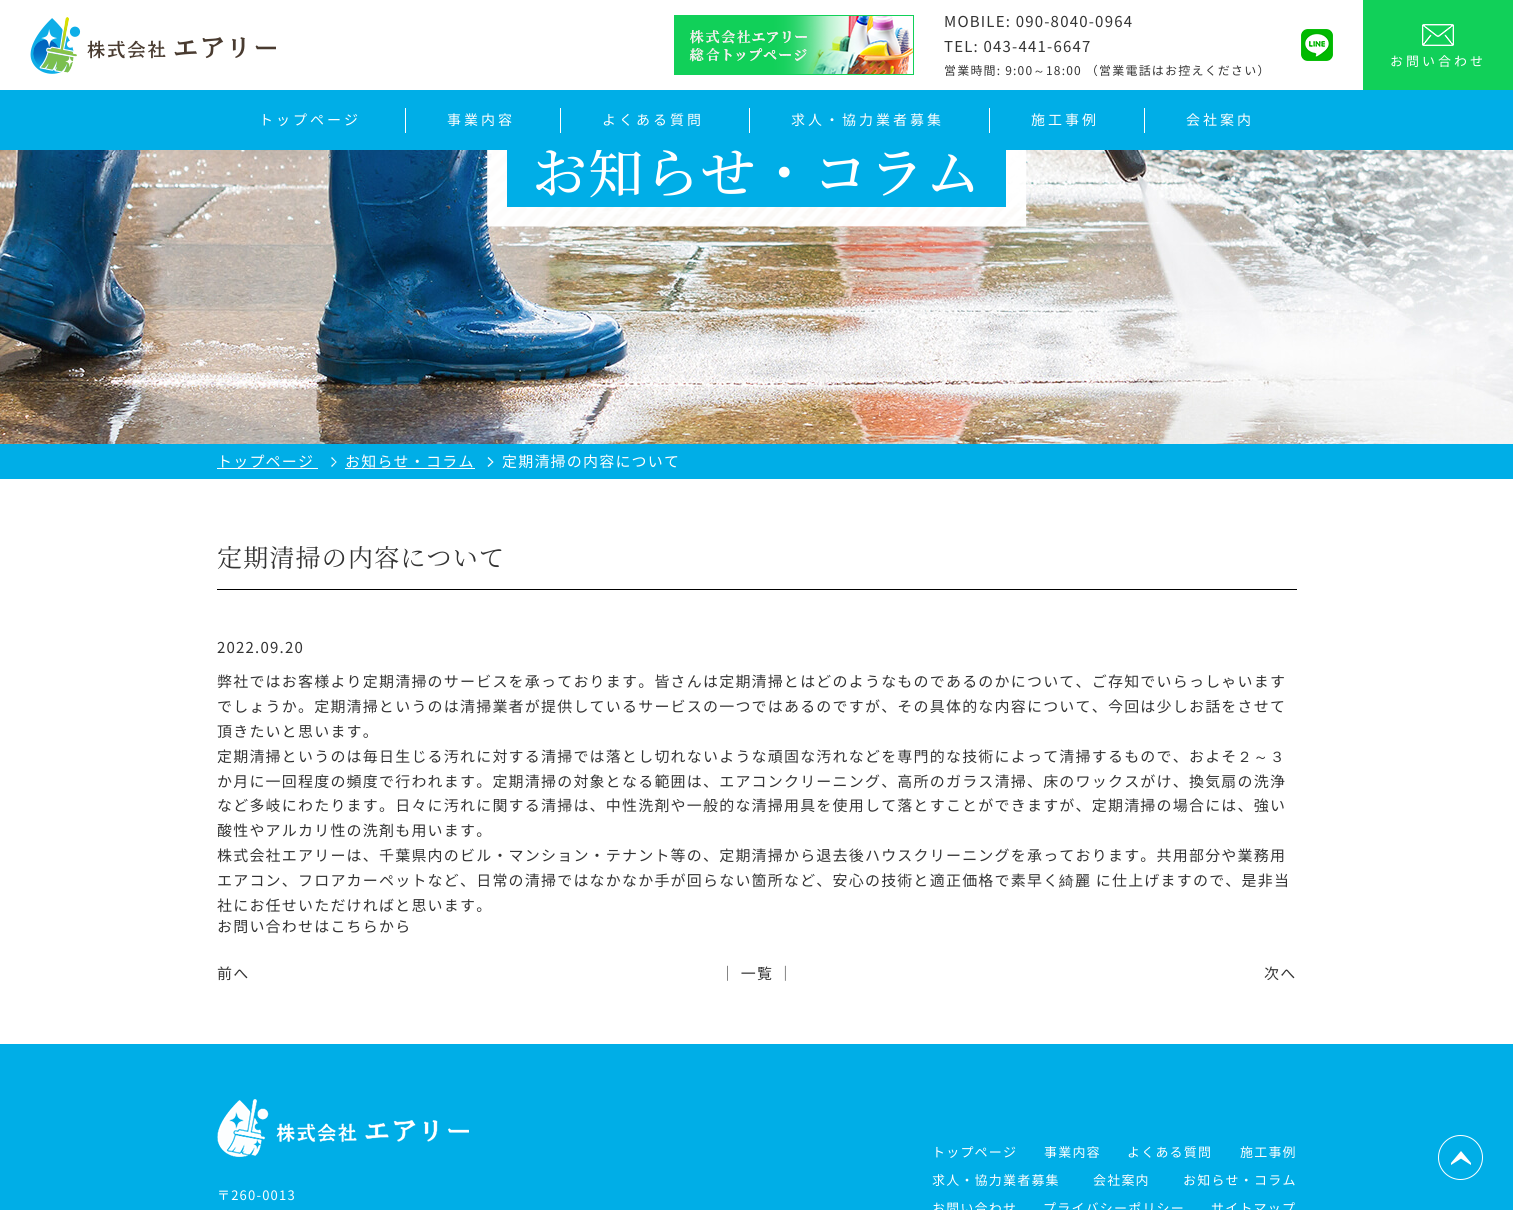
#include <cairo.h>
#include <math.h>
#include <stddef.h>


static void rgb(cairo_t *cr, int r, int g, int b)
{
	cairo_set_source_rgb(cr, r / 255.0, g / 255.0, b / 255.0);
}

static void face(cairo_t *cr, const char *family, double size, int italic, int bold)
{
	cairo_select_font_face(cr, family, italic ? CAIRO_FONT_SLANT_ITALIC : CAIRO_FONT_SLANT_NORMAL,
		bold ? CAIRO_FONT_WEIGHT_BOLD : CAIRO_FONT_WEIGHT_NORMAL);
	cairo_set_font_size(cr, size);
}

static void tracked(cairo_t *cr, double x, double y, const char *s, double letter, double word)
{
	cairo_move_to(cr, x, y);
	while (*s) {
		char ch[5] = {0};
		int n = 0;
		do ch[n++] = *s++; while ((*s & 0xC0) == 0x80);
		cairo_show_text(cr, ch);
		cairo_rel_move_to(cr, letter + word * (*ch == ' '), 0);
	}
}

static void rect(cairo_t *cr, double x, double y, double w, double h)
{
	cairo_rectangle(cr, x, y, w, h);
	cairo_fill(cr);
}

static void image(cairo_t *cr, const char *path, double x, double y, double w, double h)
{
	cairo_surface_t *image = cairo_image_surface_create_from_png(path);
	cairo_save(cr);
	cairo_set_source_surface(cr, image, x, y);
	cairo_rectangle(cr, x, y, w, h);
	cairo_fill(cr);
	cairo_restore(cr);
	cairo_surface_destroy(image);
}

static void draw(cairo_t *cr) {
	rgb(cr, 255, 255, 255);
	cairo_paint(cr);
	image(cr, "image0.png", 30, 17, 246, 57);
	image(cr, "image1.png", 674, 15, 240, 60);
	face(cr, "Noto Sans CJK JP", 15, 0, 0);
	rgb(cr, 51, 51, 51);
	tracked(cr, 944, 27, "MOBILE: 090-8040-0964", 1.2, 0);
	tracked(cr, 944, 52, "TEL: 043-441-6647", 1.2, 0);
	face(cr, "Noto Sans CJK JP", 12, 0, 0);
	tracked(cr, 944, 75, "営業時間: 9:00", 1.2, 0);
	face(cr, "WenQuanYi Zen Hei Medium", 12, 0, 0);
	tracked(cr, 1033, 75, "～", 1.2, 0);
	face(cr, "Noto Sans CJK JP", 12, 0, 0);
	tracked(cr, 1046, 75, "18:00 （営業電話はお控えください）", 1.2, 0);
	image(cr, "image2.png", 1301, 29, 32, 32);
	rgb(cr, 17, 208, 89);
	rect(cr, 1363, 0, 150, 90);
	image(cr, "image3.png", 1422, 24, 32, 22);
	face(cr, "Noto Sans CJK JP", 13, 0, 0);
	rgb(cr, 255, 255, 255);
	tracked(cr, 1390, 66, "お問い合わせ", 3, 0);
	image(cr, "image4.png", 0, 150, 1513, 294);
	image(cr, "image5.png", 487, 150, 540, 77);
	rgb(cr, 0, 174, 231);
	rect(cr, 507, 150, 499, 57);
	face(cr, "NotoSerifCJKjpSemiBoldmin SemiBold", 55, 0, 0);
	rgb(cr, 255, 255, 255);
	tracked(cr, 532, 193, "お知らせ・コラム", 1.2, 0);
	rgb(cr, 0, 174, 231);
	rect(cr, 0, 90, 1513, 60);
	face(cr, "Noto Sans CJK JP", 14, 0, 0);
	rgb(cr, 255, 255, 255);
	tracked(cr, 259, 125, "トップページ", 3, 0);
	rect(cr, 405, 108, 1, 25);
	tracked(cr, 447, 125, "事業内容", 3, 0);
	rect(cr, 560, 108, 1, 25);
	tracked(cr, 602, 125, "よくある質問", 3, 0);
	rect(cr, 749, 108, 1, 25);
	tracked(cr, 791, 125, "求人・協力業者募集", 3, 0);
	rect(cr, 989, 108, 1, 25);
	tracked(cr, 1031, 125, "施工事例", 3, 0);
	rect(cr, 1144, 108, 1, 25);
	tracked(cr, 1186, 125, "会社案内", 3, 0);
	rgb(cr, 0, 174, 231);
	rect(cr, 0, 444, 1513, 35);
	rgb(cr, 255, 255, 255);
	rect(cr, 217, 468, 101, 1);
	face(cr, "Noto Sans CJK JP", 15, 0, 0);
	tracked(cr, 217, 467, "トップページ", 1.2, 0);
	cairo_new_path(cr);
	cairo_move_to(cr, 332, 457);
	cairo_line_to(cr, 336.5, 462);
	cairo_line_to(cr, 336, 462.5);
	cairo_line_to(cr, 331, 458);
	cairo_close_path(cr);
	cairo_fill(cr);
	cairo_new_path(cr);
	cairo_move_to(cr, 336, 461.5);
	cairo_line_to(cr, 336.5, 462);
	cairo_line_to(cr, 332, 467);
	cairo_line_to(cr, 331, 466);
	cairo_close_path(cr);
	cairo_fill(cr);
	rect(cr, 345, 468, 130, 1);
	tracked(cr, 345, 467, "お知らせ・コラム", 1.2, 0);
	cairo_new_path(cr);
	cairo_move_to(cr, 488.5, 457);
	cairo_line_to(cr, 493.5, 462);
	cairo_line_to(cr, 492.5, 462.5);
	cairo_line_to(cr, 487.5, 458);
	cairo_close_path(cr);
	cairo_fill(cr);
	cairo_new_path(cr);
	cairo_move_to(cr, 492.5, 461.5);
	cairo_line_to(cr, 493.5, 462);
	cairo_line_to(cr, 488.5, 467);
	cairo_line_to(cr, 487.5, 466);
	cairo_close_path(cr);
	cairo_fill(cr);
	tracked(cr, 502, 467, "定期清掃の内容について", 1.2, 0);
	rgb(cr, 0, 0, 0);
	rect(cr, 217, 589, 1080, 1);
	face(cr, "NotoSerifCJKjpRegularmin", 25, 0, 0);
	rgb(cr, 51, 51, 51);
	tracked(cr, 217, 567, "定期清掃の内容について", 1.2, 0);
	face(cr, "Noto Sans CJK JP", 15, 0, 0);
	tracked(cr, 217, 653, "2022.09.20", 1.2, 0);
	tracked(cr, 217, 687, "弊社ではお客様より定期清掃のサービスを承っております。皆さんは定期清掃とはどのようなものであるのかについて、ご存知でいらっしゃいます", 1.2, 0);
	tracked(cr, 217, 712, "でしょうか。定期清掃というのは清掃業者が提供しているサービスの一つではあるのですが、その具体的な内容について、今回は少しお話をさせて", 1.2, 0);
	tracked(cr, 217, 737, "頂きたいと思います。", 1.2, 0);
	tracked(cr, 217, 762, "定期清掃というのは毎日生じる汚れに対する清掃では落とし切れないような頑固な汚れなどを専門的な技術によって清掃するもので、およそ", 1.2, 0);
	face(cr, "WenQuanYi Zen Hei Medium", 15, 0, 0);
	tracked(cr, 1237, 762, "２～３", 1.2, 0);
	face(cr, "Noto Sans CJK JP", 15, 0, 0);
	tracked(cr, 217, 787, "か月に一回程度の頻度で行われます。定期清掃の対象となる範囲は、エアコンクリーニング、高所のガラス清掃、床のワックスがけ、換気扇の洗浄", 1.2, 0);
	tracked(cr, 217, 811, "など多岐にわたります。日々に汚れに関する清掃は、中性洗剤や一般的な清掃用具を使用して落とすことができますが、定期清掃の場合には、強い", 1.2, 0);
	tracked(cr, 217, 836, "酸性やアルカリ性の洗剤も用います。", 1.2, 0);
	tracked(cr, 217, 861, "株式会社エアリーは、千葉県内のビル・マンション・テナント等の、定期清掃から退去後ハウスクリーニングを承っております。共用部分や業務用", 1.2, 0);
	tracked(cr, 217, 886, "エアコン、フロアカーペットなど、日常の清掃ではなかなか手が回らない箇所など、安心の技術と適正価格で素早く", 1.2, 0);
	face(cr, "WenQuanYi Zen Hei Medium", 15, 0, 0);
	tracked(cr, 1059, 886, "綺", 1.2, 0);
	face(cr, "Noto Sans CJK JP", 15, 0, 0);
	tracked(cr, 1075, 886, "麗 に仕上げますので、是非当", 1.2, 0);
	tracked(cr, 217, 911, "社にお任せいただければと思います。", 1.2, 0);
	tracked(cr, 217, 932, "お問い合わせはこちらから", 1.2, 0);
	tracked(cr, 217, 979, "前へ", 1.2, 0);
	tracked(cr, 720, 979, "│ 一覧 │", 1.2, 0);
	tracked(cr, 1264, 979, "次へ", 1.2, 0);
	rgb(cr, 0, 174, 231);
	rect(cr, 0, 1044, 1513, 166);
	image(cr, "image6.png", 217, 1099, 252, 58);
	face(cr, "Noto Sans CJK JP", 13, 0, 0);
	rgb(cr, 255, 255, 255);
	tracked(cr, 217, 1200, "〒260-0013", 1.2, 0);
	tracked(cr, 932, 1157, "トップページ", 1.2, 0);
	tracked(cr, 1044, 1157, "事業内容", 1.2, 0);
	tracked(cr, 1127, 1157, "よくある質問", 1.2, 0);
	tracked(cr, 1240, 1157, "施工事例", 1.2, 0);
	tracked(cr, 932, 1185, "求人・協力業者募集", 1.2, 0);
	tracked(cr, 1093, 1185, "会社案内", 1.2, 0);
	tracked(cr, 1183, 1185, "お知らせ・コラム", 1.2, 0);
	tracked(cr, 932, 1213, "お問い合わせ", 1.2, 0);
	tracked(cr, 1043, 1213, "プライバシーポリシー", 1.2, 0);
	tracked(cr, 1211, 1213, "サイトマップ", 1.2, 0);
	image(cr, "image7.png", 1451, 1151, 20, 14);
	cairo_arc(cr, 1460.5, 1157.5, 22, 0, 2 * M_PI);
	cairo_set_line_width(cr, 1);
	cairo_stroke(cr);
}

int main(void) {
	cairo_surface_t *surface = cairo_image_surface_create(CAIRO_FORMAT_RGB24, 1513, 1210);
	cairo_t *cr = cairo_create(surface);
	cairo_font_options_t *options = cairo_font_options_create();
	cairo_font_options_set_hint_metrics(options, CAIRO_HINT_METRICS_OFF);
	cairo_font_options_set_hint_style(options, CAIRO_HINT_STYLE_NONE);
	cairo_set_font_options(cr, options);
	cairo_set_miter_limit(cr, 4);
	draw(cr);
	cairo_surface_write_to_png(surface, "render.png");
	cairo_font_options_destroy(options);
	cairo_destroy(cr);
	cairo_surface_destroy(surface);
	return 0;
}
